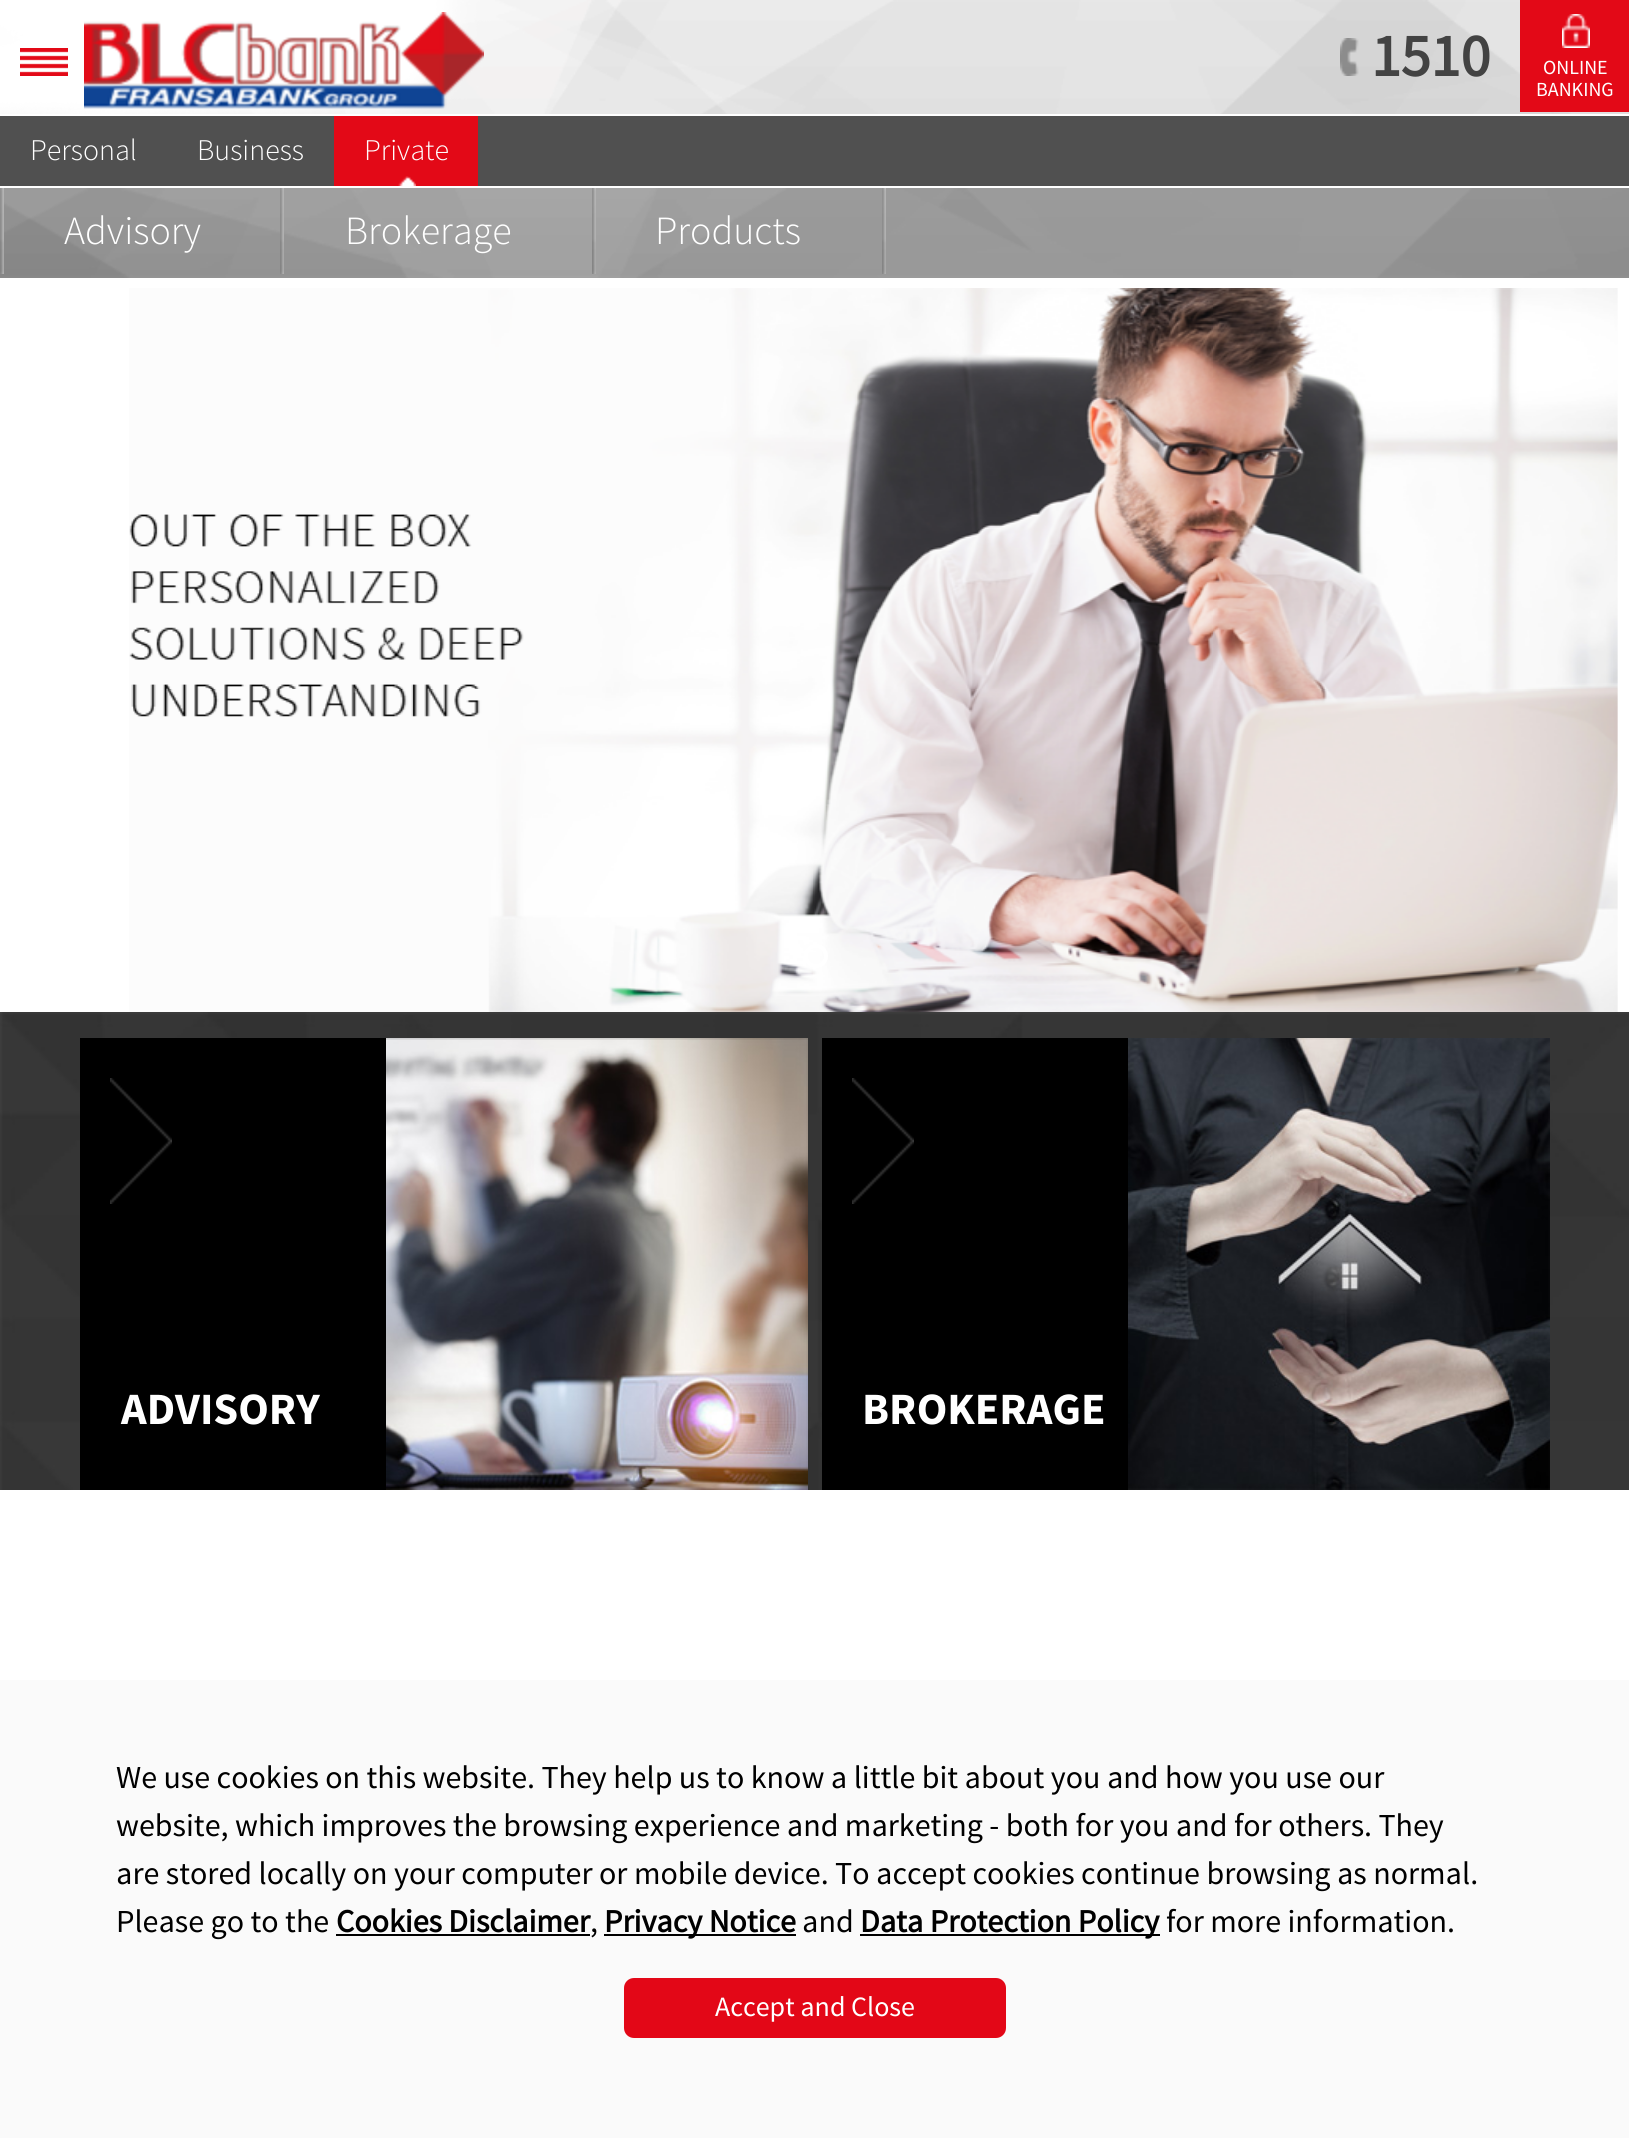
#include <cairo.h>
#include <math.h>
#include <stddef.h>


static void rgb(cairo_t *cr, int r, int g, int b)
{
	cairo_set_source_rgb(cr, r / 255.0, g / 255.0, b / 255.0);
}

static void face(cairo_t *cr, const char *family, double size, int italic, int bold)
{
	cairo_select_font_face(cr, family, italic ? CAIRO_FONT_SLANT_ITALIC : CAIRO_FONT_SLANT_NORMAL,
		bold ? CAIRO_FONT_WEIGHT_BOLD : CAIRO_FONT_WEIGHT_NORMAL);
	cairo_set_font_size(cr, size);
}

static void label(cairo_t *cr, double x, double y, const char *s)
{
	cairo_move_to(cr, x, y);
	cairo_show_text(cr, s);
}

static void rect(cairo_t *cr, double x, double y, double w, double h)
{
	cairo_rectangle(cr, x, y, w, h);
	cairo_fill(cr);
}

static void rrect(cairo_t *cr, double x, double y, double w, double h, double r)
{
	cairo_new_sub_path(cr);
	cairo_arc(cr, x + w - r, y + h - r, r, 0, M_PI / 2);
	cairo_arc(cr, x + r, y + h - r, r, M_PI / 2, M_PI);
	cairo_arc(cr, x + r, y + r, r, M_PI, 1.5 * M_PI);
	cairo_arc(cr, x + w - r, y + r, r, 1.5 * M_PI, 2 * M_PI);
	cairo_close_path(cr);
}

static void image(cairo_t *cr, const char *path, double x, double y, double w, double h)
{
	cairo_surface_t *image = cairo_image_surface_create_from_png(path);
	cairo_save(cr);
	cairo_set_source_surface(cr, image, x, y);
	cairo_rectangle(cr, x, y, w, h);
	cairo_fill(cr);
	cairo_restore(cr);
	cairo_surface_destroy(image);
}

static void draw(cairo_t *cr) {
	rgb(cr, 255, 255, 255);
	cairo_paint(cr);
	image(cr, "image0.png", 0, 0, 1629, 114);
	image(cr, "image1.png", 20, 48, 48, 28);
	image(cr, "image2.png", 84, 12, 400, 97);
	image(cr, "image3.png", 1340, 38, 19, 38);
	face(cr, "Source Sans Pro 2", 60, 0, 1);
	rgb(cr, 67, 67, 67);
	label(cr, 1371, 76, "1510");
	rgb(cr, 227, 9, 23);
	rect(cr, 1520, 0, 109, 112);
	image(cr, "image4.png", 1562, 14, 28, 34);
	face(cr, "Source Sans Pro", 20, 0, 0);
	rgb(cr, 255, 255, 255);
	label(cr, 1543, 74, "ONLINE");
	label(cr, 1536, 96, "BANKING");
	rgb(cr, 80, 80, 80);
	rect(cr, 0, 116, 1629, 70);
	face(cr, "Source Sans Pro Light", 30, 0, 0);
	rgb(cr, 255, 255, 255);
	label(cr, 30, 160, "Personal");
	label(cr, 197, 160, "Business");
	rgb(cr, 227, 9, 23);
	rect(cr, 334, 116, 144, 70);
	image(cr, "image5.png", 398, 176, 18, 10);
	rgb(cr, 255, 255, 255);
	label(cr, 364, 160, "Private");
	image(cr, "image6.png", 0, 188, 1629, 90);
	image(cr, "image7.png", 0, 188, 4, 86);
	face(cr, "Source Sans Pro Light", 40, 0, 0);
	label(cr, 64, 244, "Advisory");
	image(cr, "image7.png", 280, 188, 4, 86);
	label(cr, 345, 244, "Brokerage");
	image(cr, "image7.png", 592, 188, 4, 86);
	label(cr, 655, 244, "Products");
	image(cr, "image7.png", 882, 188, 4, 86);
	image(cr, "image8.png", 129, 288, 1489, 724);
	cairo_arc(cr, 816, 956, 10, 0, 2 * M_PI);
	cairo_set_line_width(cr, 4);
	cairo_stroke(cr);
	image(cr, "image9.png", 0, 1012, 1629, 478);
	rgb(cr, 0, 0, 0);
	rect(cr, 80, 1038, 306, 452);
	image(cr, "image10.png", 110, 1078, 62, 126);
	face(cr, "Source Sans Pro", 44.75, 0, 1);
	rgb(cr, 255, 255, 255);
	label(cr, 121, 1424, "ADVISORY");
	image(cr, "image11.png", 386, 1038, 422, 452);
	rgb(cr, 0, 0, 0);
	rect(cr, 822, 1038, 306, 452);
	image(cr, "image10.png", 852, 1078, 62, 126);
	rgb(cr, 255, 255, 255);
	label(cr, 862, 1424, "BROKERAGE");
	image(cr, "image12.png", 1128, 1038, 422, 452);
	rgb(cr, 250, 250, 250);
	rect(cr, 0, 1680, 1629, 458);
	face(cr, "Source Sans Pro", 32, 0, 0);
	rgb(cr, 0, 0, 0);
	label(cr, 116, 1788, "We use cookies on this website. They help us to know a little bit about you and how you use our");
	label(cr, 116, 1836, "website, which improves the browsing experience and marketing - both for you and for others. They");
	label(cr, 116, 1884, "are stored locally on your computer or mobile device. To accept cookies continue browsing as normal.");
	label(cr, 116, 1932, "Please go to the");
	face(cr, "Source Sans Pro 2", 32, 0, 1);
	label(cr, 336, 1932, "Cookies Disclaimer");
	rect(cr, 336, 1934, 254, 2);
	face(cr, "Source Sans Pro", 32, 0, 0);
	label(cr, 590, 1932, ",");
	rect(cr, 604, 1934, 192, 2);
	face(cr, "Source Sans Pro 2", 32, 0, 1);
	label(cr, 604, 1932, "Privacy Notice");
	face(cr, "Source Sans Pro", 32, 0, 0);
	label(cr, 802, 1932, "and");
	rect(cr, 860, 1934, 300, 2);
	face(cr, "Source Sans Pro 2", 32, 0, 1);
	label(cr, 860, 1932, "Data Protection Policy");
	face(cr, "Source Sans Pro", 32, 0, 0);
	label(cr, 1166, 1932, "for more information.");
	rgb(cr, 227, 7, 23);
	rrect(cr, 624, 1978, 382, 60, 10);
	cairo_fill(cr);
	face(cr, "Source Sans Pro", 28, 0, 0);
	rgb(cr, 255, 255, 255);
	label(cr, 715, 2016, "Accept and Close");
}

int main(void) {
	cairo_surface_t *surface = cairo_image_surface_create(CAIRO_FORMAT_RGB24, 1629, 2138);
	cairo_t *cr = cairo_create(surface);
	cairo_font_options_t *options = cairo_font_options_create();
	cairo_font_options_set_hint_metrics(options, CAIRO_HINT_METRICS_OFF);
	cairo_font_options_set_hint_style(options, CAIRO_HINT_STYLE_NONE);
	cairo_set_font_options(cr, options);
	cairo_set_miter_limit(cr, 4);
	draw(cr);
	cairo_surface_write_to_png(surface, "render.png");
	cairo_font_options_destroy(options);
	cairo_destroy(cr);
	cairo_surface_destroy(surface);
	return 0;
}
